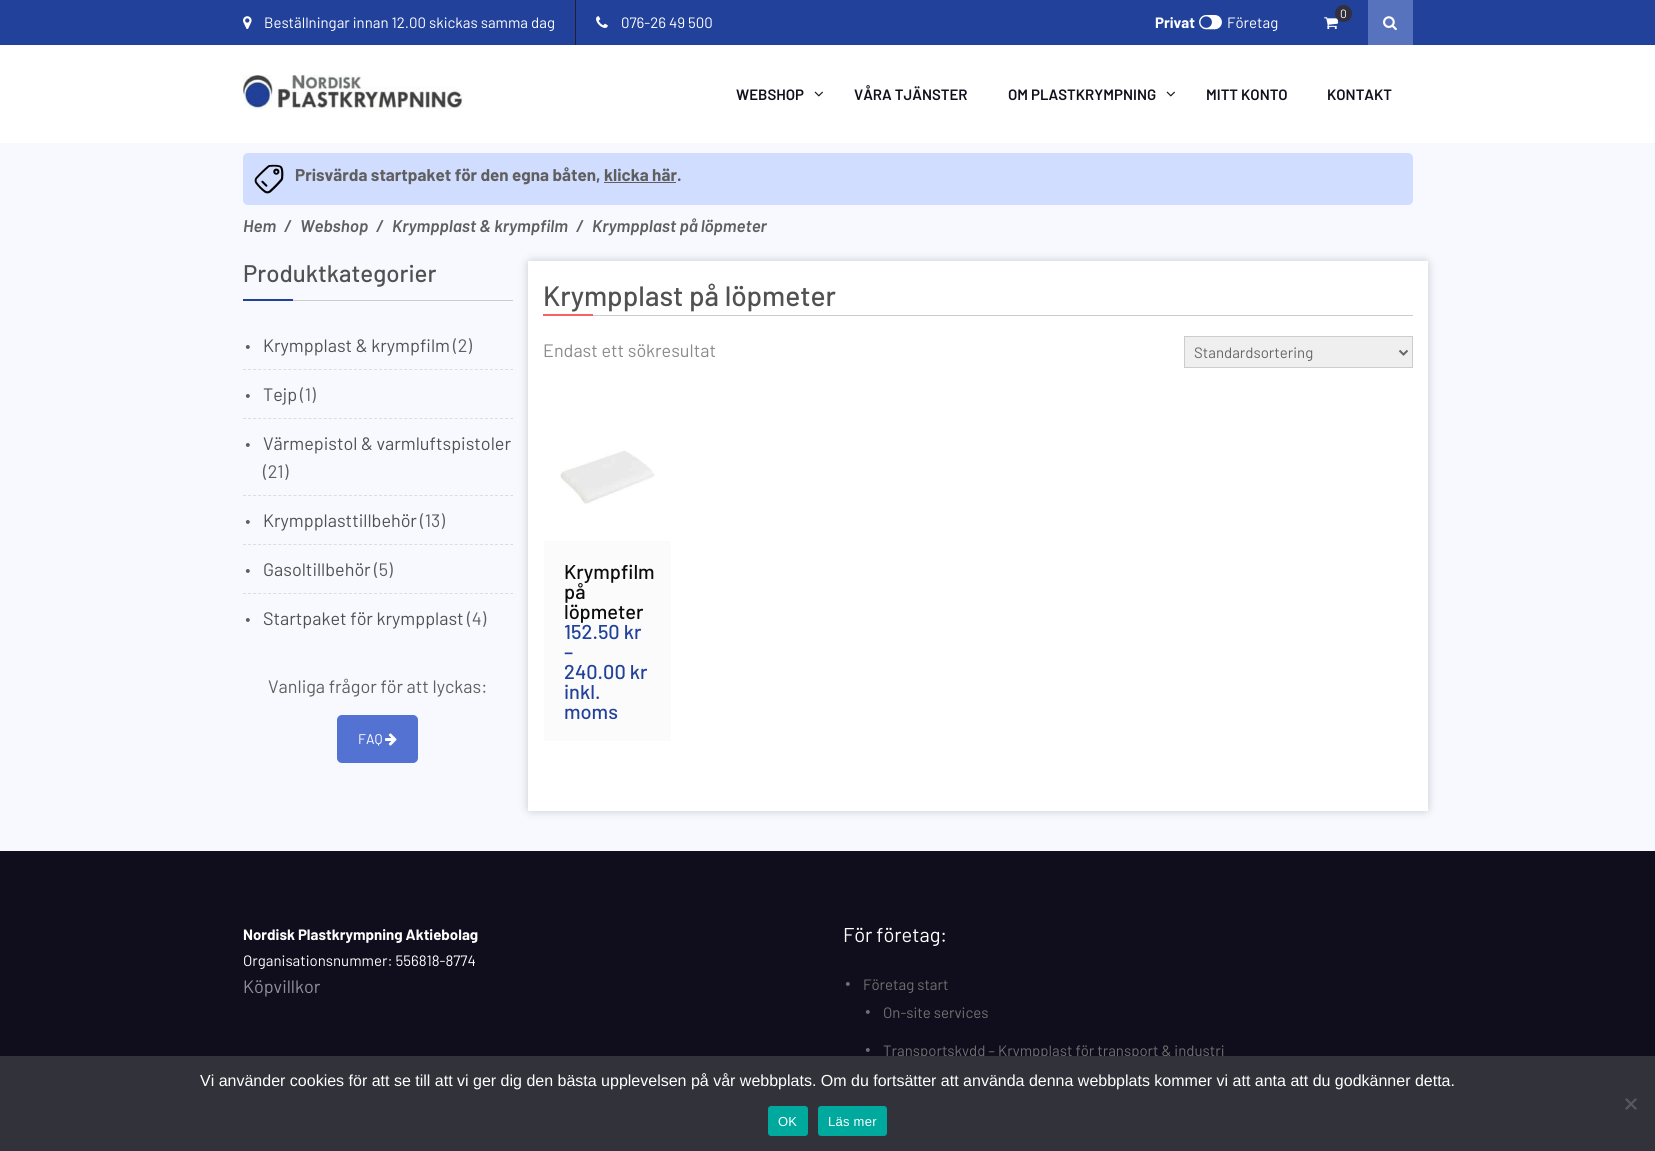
#include <cairo.h>
#include <math.h>
#include <stddef.h>


static void rgb(cairo_t *cr, int r, int g, int b)
{
	cairo_set_source_rgb(cr, r / 255.0, g / 255.0, b / 255.0);
}

static void face(cairo_t *cr, const char *family, double size, int italic, int bold)
{
	cairo_select_font_face(cr, family, italic ? CAIRO_FONT_SLANT_ITALIC : CAIRO_FONT_SLANT_NORMAL,
		bold ? CAIRO_FONT_WEIGHT_BOLD : CAIRO_FONT_WEIGHT_NORMAL);
	cairo_set_font_size(cr, size);
}

static void label(cairo_t *cr, double x, double y, const char *s)
{
	cairo_move_to(cr, x, y);
	cairo_show_text(cr, s);
}

static void tracked(cairo_t *cr, double x, double y, const char *s, double letter, double word)
{
	cairo_move_to(cr, x, y);
	while (*s) {
		char ch[5] = {0};
		int n = 0;
		do ch[n++] = *s++; while ((*s & 0xC0) == 0x80);
		cairo_show_text(cr, ch);
		cairo_rel_move_to(cr, letter + word * (*ch == ' '), 0);
	}
}

static void rect(cairo_t *cr, double x, double y, double w, double h)
{
	cairo_rectangle(cr, x, y, w, h);
	cairo_fill(cr);
}

static void rrect(cairo_t *cr, double x, double y, double w, double h, double r)
{
	cairo_new_sub_path(cr);
	cairo_arc(cr, x + w - r, y + h - r, r, 0, M_PI / 2);
	cairo_arc(cr, x + r, y + h - r, r, M_PI / 2, M_PI);
	cairo_arc(cr, x + r, y + r, r, M_PI, 1.5 * M_PI);
	cairo_arc(cr, x + w - r, y + r, r, 1.5 * M_PI, 2 * M_PI);
	cairo_close_path(cr);
}

static void soft_shadow(cairo_t *cr, double x, double y, double w, double h, double r, double blur, double alpha)
{
	cairo_push_group_with_content(cr, CAIRO_CONTENT_ALPHA);
	cairo_set_operator(cr, CAIRO_OPERATOR_SOURCE);
	for (int i = 15; i >= -15 && fmin(w, h) + blur * i / 3 > 0; i -= 2) {
		double e = blur * i / 6;
		cairo_set_source_rgba(cr, 0, 0, 0, alpha * erfc((i - 1) / 8.5) / 2);
		rrect(cr, x - e, y - e, w + 2 * e, h + 2 * e, fmax(0, fmin(r + e + blur * .6, fmin(w, h) / 2 + e)));
		cairo_fill(cr);
	}
	cairo_pattern_t *soft = cairo_pop_group(cr);
	cairo_mask(cr, soft);
	cairo_pattern_destroy(soft);
}

static void image(cairo_t *cr, const char *path, double x, double y, double w, double h)
{
	cairo_surface_t *image = cairo_image_surface_create_from_png(path);
	cairo_save(cr);
	cairo_set_source_surface(cr, image, x, y);
	cairo_rectangle(cr, x, y, w, h);
	cairo_fill(cr);
	cairo_restore(cr);
	cairo_surface_destroy(image);
}

static void draw(cairo_t *cr) {
	rgb(cr, 255, 255, 255);
	cairo_paint(cr);
	rgb(cr, 33, 65, 155);
	rect(cr, 0, 0, 1655, 45);
	rgb(cr, 34, 32, 46);
	rect(cr, 575, 0, 1, 45);
	image(cr, "image0.png", 243, 16, 9, 13);
	face(cr, "Barlow", 15, 0, 0);
	rgb(cr, 255, 255, 255);
	label(cr, 264, 28, "Beställningar innan 12.00 skickas samma dag");
	image(cr, "image1.png", 596, 16, 12, 12);
	label(cr, 621, 28, "076-26 49 500");
	image(cr, "image2.png", 1324, 17, 14, 13);
	rgb(cr, 49, 48, 60);
	cairo_arc(cr, 1343.5, 13.5, 8.5, 0, 2 * M_PI);
	cairo_fill(cr);
	face(cr, "Barlow", 12, 0, 0);
	rgb(cr, 255, 255, 255);
	label(cr, 1340, 18, "0");
	rgb(cr, 88, 115, 189);
	rect(cr, 1368, 0, 45, 45);
	image(cr, "image3.png", 1383, 16, 14, 15);
	face(cr, "Barlow", 15, 0, 1);
	rgb(cr, 255, 255, 255);
	label(cr, 1155, 28, "Privat");
	image(cr, "image4.png", 1199, 15, 23, 15);
	face(cr, "Barlow", 15, 0, 0);
	label(cr, 1227, 28, "Företag");
	image(cr, "image5.png", 243, 75, 220, 34);
	face(cr, "Barlow SemiBold", 15, 0, 0);
	rgb(cr, 17, 16, 29);
	label(cr, 736, 100, "WEBSHOP");
	image(cr, "image6.png", 814, 91, 9, 6);
	label(cr, 854, 100, "VÅRA TJÄNSTER");
	label(cr, 1008, 100, "OM PLASTKRYMPNING");
	image(cr, "image6.png", 1166, 91, 9, 6);
	label(cr, 1206, 100, "MITT KONTO");
	label(cr, 1327, 100, "KONTAKT");
	rgb(cr, 247, 249, 255);
	rect(cr, 0, 143, 1655, 708);
	rgb(cr, 209, 221, 255);
	rrect(cr, 243, 153, 1170, 52, 5);
	cairo_fill(cr);
	image(cr, "image7.png", 254, 164, 30, 30);
	face(cr, "Barlow", 17, 0, 1);
	rgb(cr, 95, 95, 95);
	label(cr, 295, 181, "Prisvärda startpaket för den egna båten, klicka här.");
	rect(cr, 604, 182, 72, 1);
	face(cr, "Barlow SemiBold", 17, 1, 0);
	label(cr, 243, 232, "Hem");
	label(cr, 284, 232, "/");
	label(cr, 300, 232, "Webshop");
	label(cr, 376, 232, "/");
	label(cr, 392, 232, "Krympplast & krympfilm");
	label(cr, 576, 232, "/");
	label(cr, 592, 232, "Krympplast på löpmeter");
	rgb(cr, 204, 204, 204);
	rect(cr, 293, 300, 220, 1);
	face(cr, "Barlow Medium", 24, 0, 0);
	rgb(cr, 81, 81, 81);
	label(cr, 243, 282, "Produktkategorier");
	rgb(cr, 33, 65, 155);
	rect(cr, 243, 299, 50, 2);
	cairo_new_path(cr);
	cairo_move_to(cr, 243, 369.5);
	cairo_line_to(cr, 513, 369.5);
	rgb(cr, 221, 221, 221);
	cairo_set_line_width(cr, 1);
	cairo_set_dash(cr, (double[]){3, 2.04}, 2, 0);
	cairo_stroke(cr);
	face(cr, "Barlow", 35, 0, 0);
	rgb(cr, 95, 95, 95);
	label(cr, 243, 349, ".");
	face(cr, "Barlow", 18, 0, 0);
	rgb(cr, 81, 81, 81);
	label(cr, 263, 352, "Krympplast & krympfilm");
	rgb(cr, 95, 95, 95);
	label(cr, 453, 352, "(2)");
	cairo_new_path(cr);
	cairo_move_to(cr, 243, 418.5);
	cairo_line_to(cr, 513, 418.5);
	rgb(cr, 221, 221, 221);
	cairo_stroke(cr);
	face(cr, "Barlow", 35, 0, 0);
	rgb(cr, 95, 95, 95);
	label(cr, 243, 398, ".");
	face(cr, "Barlow", 18, 0, 0);
	rgb(cr, 81, 81, 81);
	label(cr, 263, 401, "Tejp");
	rgb(cr, 95, 95, 95);
	label(cr, 300, 401, "(1)");
	cairo_new_path(cr);
	cairo_move_to(cr, 243, 495.5);
	cairo_line_to(cr, 513, 495.5);
	rgb(cr, 221, 221, 221);
	cairo_stroke(cr);
	face(cr, "Barlow", 35, 0, 0);
	rgb(cr, 95, 95, 95);
	label(cr, 243, 447, ".");
	face(cr, "Barlow", 18, 0, 0);
	rgb(cr, 81, 81, 81);
	label(cr, 263, 450, "Värmepistol & varmluftspistoler");
	rgb(cr, 95, 95, 95);
	label(cr, 263, 478, "(21)");
	cairo_new_path(cr);
	cairo_move_to(cr, 243, 544.5);
	cairo_line_to(cr, 513, 544.5);
	rgb(cr, 221, 221, 221);
	cairo_stroke(cr);
	face(cr, "Barlow", 35, 0, 0);
	rgb(cr, 95, 95, 95);
	label(cr, 243, 524, ".");
	face(cr, "Barlow", 18, 0, 0);
	rgb(cr, 81, 81, 81);
	label(cr, 263, 527, "Krympplasttillbehör");
	rgb(cr, 95, 95, 95);
	label(cr, 420, 527, "(13)");
	cairo_new_path(cr);
	cairo_move_to(cr, 243, 593.5);
	cairo_line_to(cr, 513, 593.5);
	rgb(cr, 221, 221, 221);
	cairo_stroke(cr);
	face(cr, "Barlow", 35, 0, 0);
	rgb(cr, 95, 95, 95);
	label(cr, 243, 573, ".");
	face(cr, "Barlow", 18, 0, 0);
	rgb(cr, 81, 81, 81);
	label(cr, 263, 576, "Gasoltillbehör");
	rgb(cr, 95, 95, 95);
	label(cr, 374, 576, "(5)");
	face(cr, "Barlow", 35, 0, 0);
	label(cr, 243, 622, ".");
	face(cr, "Barlow", 18, 0, 0);
	rgb(cr, 81, 81, 81);
	label(cr, 263, 625, "Startpaket för krympplast");
	rgb(cr, 95, 95, 95);
	label(cr, 467, 625, "(4)");
	label(cr, 268, 693, "Vanliga frågor för att lyckas:");
	rgb(cr, 84, 114, 210);
	rrect(cr, 337, 715, 81, 48, 5);
	cairo_fill(cr);
	face(cr, "Barlow", 14, 0, 0);
	rgb(cr, 255, 255, 255);
	label(cr, 358, 744, "FAQ");
	image(cr, "image8.png", 385, 733, 12, 13);
	rgb(cr, 0, 0, 0);
	soft_shadow(cr, 531, 264, 894, 544, 0, 5.5, 0.35);
	rgb(cr, 255, 255, 255);
	rect(cr, 528, 261, 900, 550);
	rgb(cr, 204, 204, 204);
	rect(cr, 593, 315, 820, 1);
	face(cr, "Barlow Medium", 28, 0, 0);
	rgb(cr, 81, 81, 81);
	label(cr, 543, 306, "Krympplast på löpmeter");
	rgb(cr, 250, 97, 97);
	rect(cr, 543, 314, 50, 2);
	face(cr, "Barlow", 18, 0, 0);
	rgb(cr, 138, 138, 138);
	label(cr, 543, 357, "Endast ett sökresultat");
	rgb(cr, 239, 239, 239);
	cairo_rectangle(cr, 1184.5, 336.5, 228, 31);
	cairo_fill_preserve(cr);
	rgb(cr, 204, 204, 204);
	cairo_set_dash(cr, NULL, 0, 0);
	cairo_stroke(cr);
	cairo_new_path(cr);
	cairo_move_to(cr, 1399.5, 350.5);
	cairo_line_to(cr, 1403.5, 354.5);
	cairo_line_to(cr, 1407.5, 350.5);
	rgb(cr, 102, 102, 102);
	cairo_set_line_width(cr, 2);
	cairo_stroke(cr);
	face(cr, "Barlow", 15, 0, 0);
	label(cr, 1194, 358, "Standardsortering");
	image(cr, "image9.png", 560, 450, 95, 54);
	rgb(cr, 251, 251, 251);
	rect(cr, 544, 541, 127, 200);
	face(cr, "Barlow Medium", 20, 0, 0);
	rgb(cr, 10, 11, 12);
	label(cr, 564, 579, "Krympfilm");
	label(cr, 564, 599, "på");
	label(cr, 564, 619, "löpmeter");
	rgb(cr, 33, 65, 155);
	label(cr, 564, 639, "152.50 kr");
	label(cr, 564, 659, "–");
	label(cr, 564, 679, "240.00 kr");
	label(cr, 564, 699, "inkl.");
	label(cr, 564, 719, "moms");
	rgb(cr, 16, 14, 28);
	rect(cr, 0, 851, 1655, 205);
	face(cr, "Barlow", 15, 0, 1);
	rgb(cr, 255, 255, 255);
	label(cr, 243, 940, "Nordisk Plastkrympning Aktiebolag");
	face(cr, "Barlow", 15, 0, 0);
	label(cr, 243, 966, "Organisationsnummer: 556818-8774");
	face(cr, "Barlow", 18, 0, 0);
	rgb(cr, 145, 143, 157);
	label(cr, 243, 993, "Köpvillkor");
	face(cr, "Barlow", 20, 0, 0);
	rgb(cr, 255, 255, 255);
	label(cr, 843, 942, "För företag:");
	face(cr, "Barlow", 35, 0, 0);
	rgb(cr, 112, 112, 112);
	label(cr, 843, 986, ".");
	face(cr, "Barlow", 15, 0, 0);
	label(cr, 863, 990, "Företag start");
	face(cr, "Barlow", 35, 0, 0);
	label(cr, 863, 1014, ".");
	face(cr, "Barlow", 15, 0, 0);
	label(cr, 883, 1018, "On-site services");
	face(cr, "Barlow", 35, 0, 0);
	label(cr, 863, 1052, ".");
	face(cr, "Barlow", 15, 0, 0);
	label(cr, 883, 1056, "Transportskydd – Krympplast för transport & industri");
	rgb(cr, 50, 50, 58);
	rect(cr, 0, 1056, 1655, 95);
	face(cr, "Liberation Sans", 16, 0, 0);
	rgb(cr, 255, 255, 255);
	label(cr, 200, 1086, "Vi använder cookies för att se till att vi ger dig den bästa upplevelsen på vår webbplats. Om du fortsätter att använda denna webbplats kommer vi att anta att du godkänner detta.");
	rgb(cr, 89, 89, 93);
	cairo_new_path(cr);
	cairo_move_to(cr, 1635.5, 1098);
	cairo_line_to(cr, 1637, 1099.5);
	cairo_line_to(cr, 1626.5, 1110);
	cairo_line_to(cr, 1625, 1108.5);
	cairo_close_path(cr);
	cairo_fill(cr);
	cairo_new_path(cr);
	cairo_move_to(cr, 1625, 1099.5);
	cairo_line_to(cr, 1626.5, 1098);
	cairo_line_to(cr, 1637, 1108.5);
	cairo_line_to(cr, 1635.5, 1110);
	cairo_close_path(cr);
	cairo_fill(cr);
	rgb(cr, 0, 169, 157);
	rrect(cr, 768, 1106, 40, 30, 3);
	cairo_fill(cr);
	face(cr, "Liberation Sans", 13, 0, 0);
	rgb(cr, 255, 255, 255);
	tracked(cr, 778, 1126, "OK", 0.25, 0);
	rgb(cr, 0, 169, 157);
	rrect(cr, 818, 1106, 69, 30, 3);
	cairo_fill(cr);
	rgb(cr, 255, 255, 255);
	tracked(cr, 828, 1126, "Läs mer", 0.25, 0);
}

int main(void) {
	cairo_surface_t *surface = cairo_image_surface_create(CAIRO_FORMAT_RGB24, 1655, 1151);
	cairo_t *cr = cairo_create(surface);
	cairo_font_options_t *options = cairo_font_options_create();
	cairo_font_options_set_hint_metrics(options, CAIRO_HINT_METRICS_OFF);
	cairo_font_options_set_hint_style(options, CAIRO_HINT_STYLE_NONE);
	cairo_set_font_options(cr, options);
	cairo_set_miter_limit(cr, 4);
	draw(cr);
	cairo_surface_write_to_png(surface, "render.png");
	cairo_font_options_destroy(options);
	cairo_destroy(cr);
	cairo_surface_destroy(surface);
	return 0;
}
